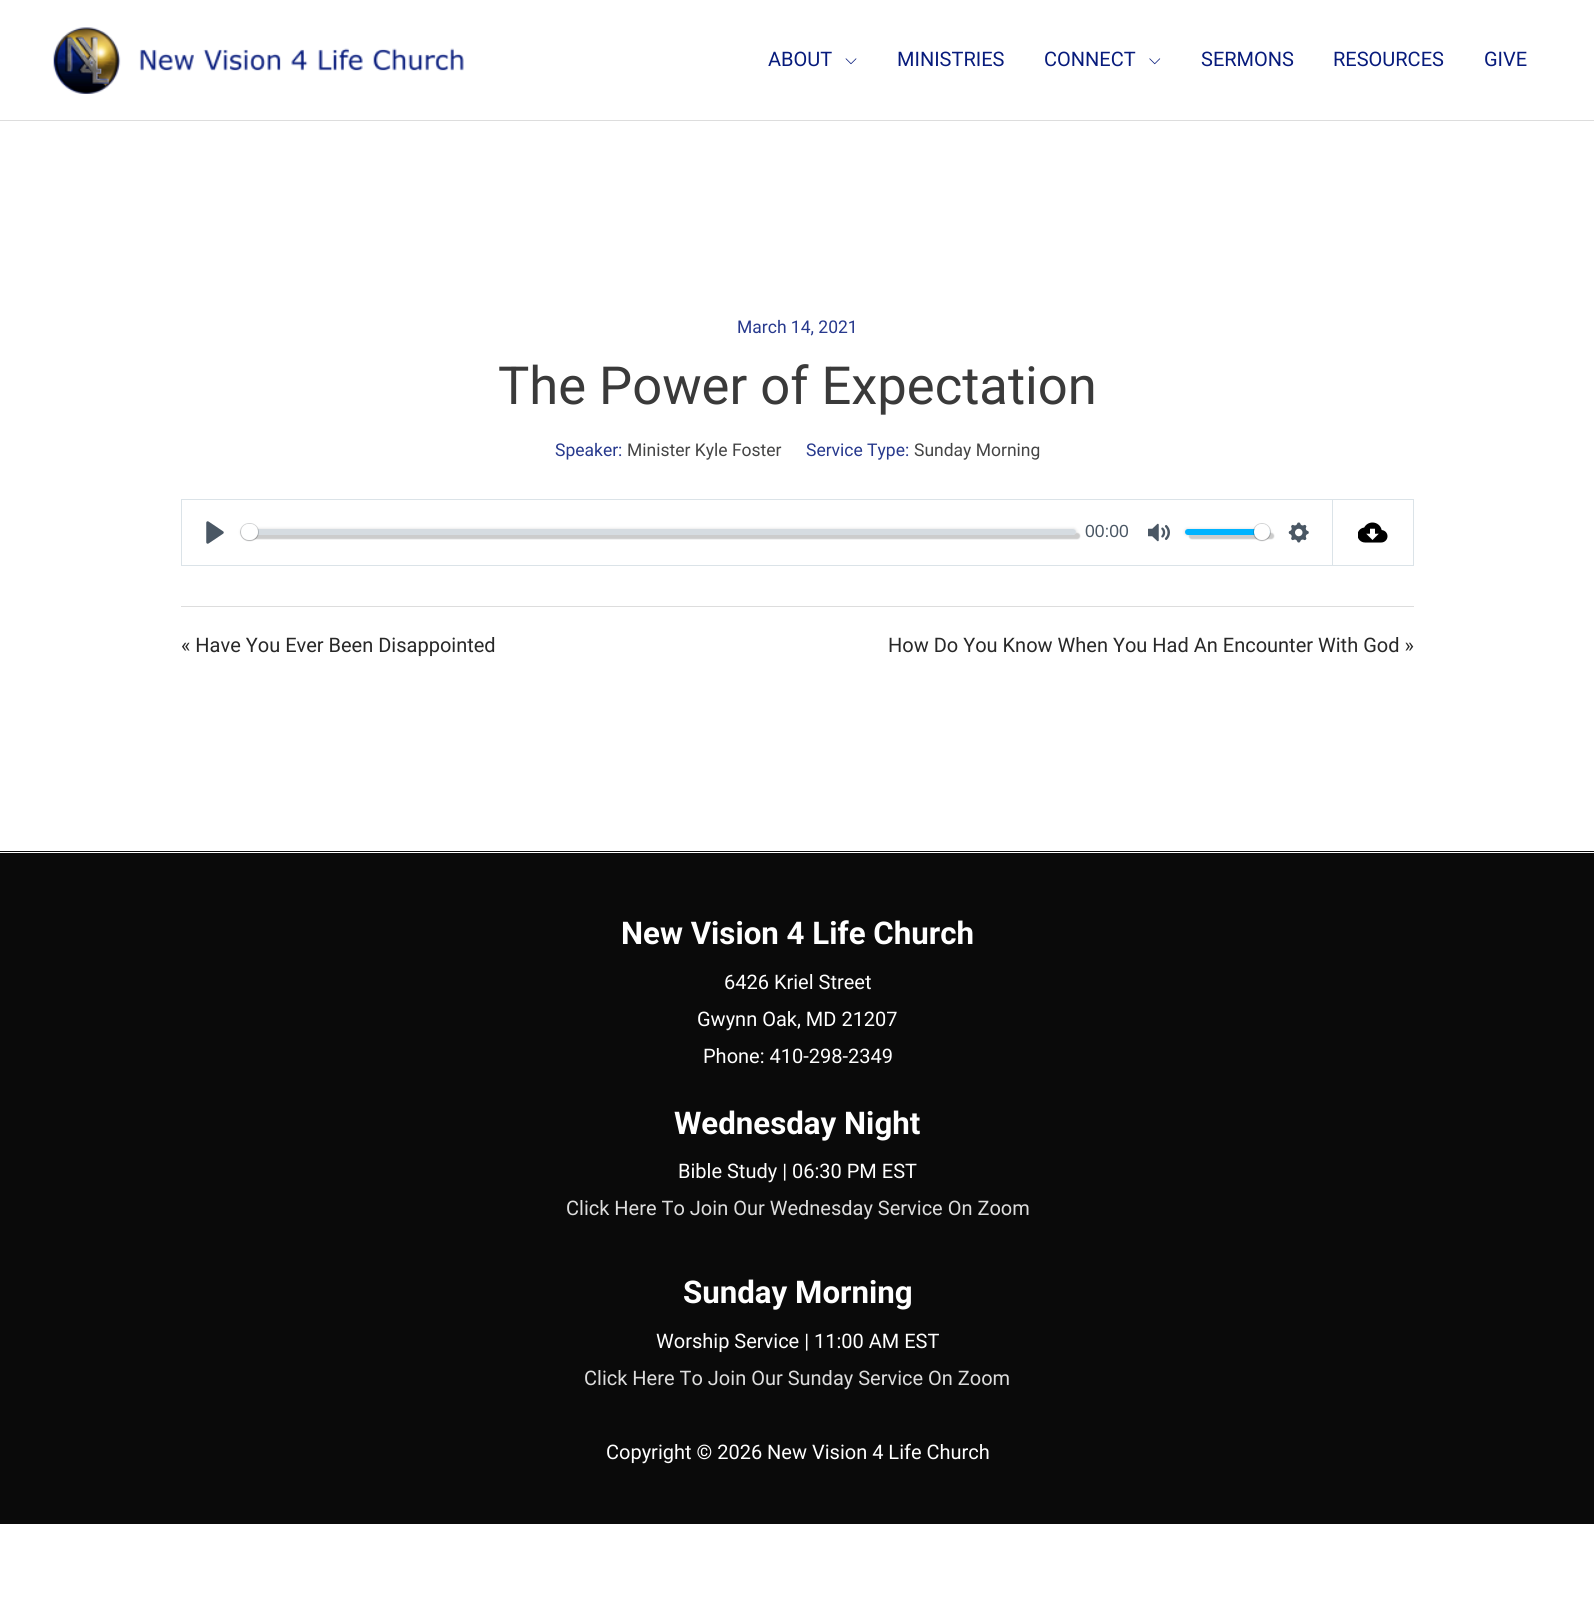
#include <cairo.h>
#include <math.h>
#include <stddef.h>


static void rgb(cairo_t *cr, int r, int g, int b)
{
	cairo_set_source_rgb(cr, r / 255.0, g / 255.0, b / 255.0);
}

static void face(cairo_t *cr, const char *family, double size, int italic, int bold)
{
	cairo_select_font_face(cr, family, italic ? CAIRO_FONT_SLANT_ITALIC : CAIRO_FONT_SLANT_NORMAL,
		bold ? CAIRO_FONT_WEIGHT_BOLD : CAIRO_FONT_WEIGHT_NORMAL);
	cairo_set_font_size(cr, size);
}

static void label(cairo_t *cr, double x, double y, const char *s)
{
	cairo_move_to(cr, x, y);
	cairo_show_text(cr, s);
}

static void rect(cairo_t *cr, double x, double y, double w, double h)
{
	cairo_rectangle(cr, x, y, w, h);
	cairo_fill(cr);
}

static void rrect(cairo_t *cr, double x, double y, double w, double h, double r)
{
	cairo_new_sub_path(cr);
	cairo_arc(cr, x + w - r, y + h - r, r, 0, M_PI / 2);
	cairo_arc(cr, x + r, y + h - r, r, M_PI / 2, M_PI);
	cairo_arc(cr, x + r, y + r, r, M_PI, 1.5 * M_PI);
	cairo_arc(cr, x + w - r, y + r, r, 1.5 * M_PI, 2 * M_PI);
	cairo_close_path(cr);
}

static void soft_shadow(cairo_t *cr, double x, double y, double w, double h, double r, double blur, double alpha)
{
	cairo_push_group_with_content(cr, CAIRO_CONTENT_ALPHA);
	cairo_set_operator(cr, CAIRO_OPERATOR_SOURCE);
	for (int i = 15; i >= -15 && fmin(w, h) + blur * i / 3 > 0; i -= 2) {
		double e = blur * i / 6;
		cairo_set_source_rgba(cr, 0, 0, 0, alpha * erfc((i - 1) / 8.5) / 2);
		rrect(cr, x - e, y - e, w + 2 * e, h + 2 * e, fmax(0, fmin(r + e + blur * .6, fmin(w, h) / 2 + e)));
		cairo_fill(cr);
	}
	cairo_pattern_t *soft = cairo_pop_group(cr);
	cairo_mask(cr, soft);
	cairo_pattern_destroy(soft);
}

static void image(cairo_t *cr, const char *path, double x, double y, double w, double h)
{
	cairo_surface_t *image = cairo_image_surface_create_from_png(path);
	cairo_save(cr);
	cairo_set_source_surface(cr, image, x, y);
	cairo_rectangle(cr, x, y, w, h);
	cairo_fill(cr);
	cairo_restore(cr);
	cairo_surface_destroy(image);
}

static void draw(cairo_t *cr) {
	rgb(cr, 255, 255, 255);
	cairo_paint(cr);
	rgb(cr, 221, 221, 221);
	rect(cr, 0, 120, 1594, 1);
	image(cr, "image0.png", 53, 27, 411, 67);
	face(cr, "Roboto", 20, 0, 0);
	rgb(cr, 7, 27, 124);
	label(cr, 768, 66, "ABOUT");
	image(cr, "image1.png", 845, 58, 12, 7);
	label(cr, 897, 66, "MINISTRIES");
	label(cr, 1044, 66, "CONNECT");
	image(cr, "image2.png", 1149, 58, 12, 7);
	label(cr, 1201, 66, "SERMONS");
	label(cr, 1333, 66, "RESOURCES");
	label(cr, 1484, 66, "GIVE");
	face(cr, "Roboto", 17.5, 0, 0);
	rgb(cr, 39, 57, 141);
	label(cr, 737, 333, "March 14, 2021");
	face(cr, "Roboto", 52.5, 0, 0);
	rgb(cr, 58, 58, 58);
	label(cr, 498, 404, "The Power of Expectation");
	face(cr, "Roboto", 17.5, 0, 0);
	rgb(cr, 39, 57, 141);
	label(cr, 555, 456, "Speaker:");
	rgb(cr, 68, 68, 68);
	label(cr, 627, 456, "Minister Kyle Foster");
	rgb(cr, 39, 57, 141);
	label(cr, 806, 456, "Service Type:");
	rgb(cr, 68, 68, 68);
	label(cr, 914, 456, "Sunday Morning");
	cairo_rectangle(cr, 181.5, 499.5, 1151, 66);
	rgb(cr, 219, 227, 232);
	cairo_set_line_width(cr, 1);
	cairo_stroke(cr);
	image(cr, "image3.png", 206, 521, 18, 23);
	cairo_save(cr);
	cairo_set_fill_rule(cr, CAIRO_FILL_RULE_EVEN_ODD);
	cairo_new_path(cr);
	cairo_move_to(cr, 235, 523);
	cairo_line_to(cr, 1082, 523);
	cairo_line_to(cr, 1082, 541);
	cairo_line_to(cr, 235, 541);
	cairo_close_path(cr);
	cairo_move_to(cr, 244, 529);
	cairo_line_to(cr, 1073, 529);
	cairo_curve_to(cr, 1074.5, 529, 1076, 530.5, 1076, 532);
	cairo_curve_to(cr, 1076, 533.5, 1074.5, 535, 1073, 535);
	cairo_line_to(cr, 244, 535);
	cairo_curve_to(cr, 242.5, 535, 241, 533.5, 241, 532);
	cairo_curve_to(cr, 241, 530.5, 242.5, 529, 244, 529);
	cairo_close_path(cr);
	cairo_clip(cr);
	rgb(cr, 217, 217, 217);
	soft_shadow(cr, 241, 529, 835, 6, 3, 1.5, 1);
	cairo_restore(cr);
	cairo_save(cr);
	cairo_set_fill_rule(cr, CAIRO_FILL_RULE_EVEN_ODD);
	cairo_new_path(cr);
	cairo_move_to(cr, 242, 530);
	cairo_line_to(cr, 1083, 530);
	cairo_line_to(cr, 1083, 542);
	cairo_line_to(cr, 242, 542);
	cairo_close_path(cr);
	cairo_move_to(cr, 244, 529);
	cairo_line_to(cr, 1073, 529);
	cairo_curve_to(cr, 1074.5, 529, 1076, 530.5, 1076, 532);
	cairo_curve_to(cr, 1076, 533.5, 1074.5, 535, 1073, 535);
	cairo_line_to(cr, 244, 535);
	cairo_curve_to(cr, 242.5, 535, 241, 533.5, 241, 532);
	cairo_curve_to(cr, 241, 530.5, 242.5, 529, 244, 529);
	cairo_close_path(cr);
	cairo_clip(cr);
	rgb(cr, 204, 204, 204);
	soft_shadow(cr, 245, 533, 835, 6, 3, 0.5, 1);
	cairo_restore(cr);
	cairo_set_source_rgba(cr, 0.757, 0.788, 0.82, 0.66);
	rrect(cr, 241, 529, 835, 6, 3);
	cairo_fill(cr);
	rrect(cr, 240.5, 523.5, 18, 17, 8.5);
	cairo_set_source_rgba(cr, 0.137, 0.161, 0.184, 0.2);
	cairo_stroke(cr);
	rgb(cr, 0, 0, 0);
	soft_shadow(cr, 241, 525, 17, 16, 8, 0.5, 0.15);
	rgb(cr, 255, 255, 255);
	rrect(cr, 241, 524, 17, 16, 8);
	cairo_fill(cr);
	face(cr, "Liberation Sans", 17.5, 0, 0);
	rgb(cr, 74, 87, 100);
	label(cr, 1085, 537, "00:00");
	image(cr, "image4.png", 1148, 523, 22, 19);
	rgb(cr, 217, 217, 217);
	soft_shadow(cr, 1185, 529, 85, 6, 3, 1.5, 1);
	rgb(cr, 204, 204, 204);
	soft_shadow(cr, 1189, 533, 85, 6, 3, 0.5, 1);
	rgb(cr, 0, 179, 255);
	rrect(cr, 1185, 529, 85, 6, 3);
	cairo_fill(cr);
	cairo_arc(cr, 1262, 532, 8.5, 0, 2 * M_PI);
	cairo_set_source_rgba(cr, 0.137, 0.161, 0.184, 0.2);
	cairo_stroke(cr);
	rgb(cr, 0, 0, 0);
	soft_shadow(cr, 1254, 525, 16, 16, 8, 0.5, 0.15);
	rgb(cr, 255, 255, 255);
	cairo_arc(cr, 1262, 532, 8, 0, 2 * M_PI);
	cairo_fill(cr);
	image(cr, "image5.png", 1288, 522, 21, 21);
	rgb(cr, 219, 227, 232);
	rect(cr, 1333, 499, 81, 1);
	rect(cr, 1413, 499, 1, 67);
	rect(cr, 1333, 565, 81, 1);
	image(cr, "image6.png", 1358, 522, 30, 21);
	rgb(cr, 221, 221, 221);
	rect(cr, 181, 606, 1233, 1);
	face(cr, "Roboto", 20, 0, 0);
	rgb(cr, 40, 40, 40);
	label(cr, 181, 652, "« Have You Ever Been Disappointed");
	label(cr, 888, 652, "How Do You Know When You Had An Encounter With God »");
	rgb(cr, 10, 10, 10);
	rect(cr, 0, 851, 1594, 1);
	rect(cr, 0, 853, 1594, 671);
	face(cr, "Roboto", 31.25, 0, 1);
	rgb(cr, 255, 255, 255);
	label(cr, 621, 944, "New Vision 4 Life Church");
	face(cr, "Roboto", 20, 0, 0);
	label(cr, 724, 989, "6426 Kriel Street");
	label(cr, 697, 1026, "Gwynn Oak, MD 21207");
	label(cr, 703, 1063, "Phone: 410-298-2349");
	face(cr, "Roboto", 31.25, 0, 1);
	label(cr, 674, 1134, "Wednesday Night");
	face(cr, "Roboto", 20, 0, 0);
	label(cr, 678, 1178, "Bible Study | 06:30 PM EST");
	rgb(cr, 221, 221, 221);
	label(cr, 566, 1215, "Click Here To Join Our Wednesday Service On Zoom");
	face(cr, "Roboto", 31.25, 0, 1);
	rgb(cr, 255, 255, 255);
	label(cr, 683, 1303, "Sunday Morning");
	face(cr, "Roboto", 20, 0, 0);
	label(cr, 656, 1348, "Worship Service | 11:00 AM EST");
	rgb(cr, 221, 221, 221);
	label(cr, 584, 1385, "Click Here To Join Our Sunday Service On Zoom");
	rgb(cr, 255, 255, 255);
	label(cr, 606, 1459, "Copyright © 2026 New Vision 4 Life Church");
}

int main(void) {
	cairo_surface_t *surface = cairo_image_surface_create(CAIRO_FORMAT_RGB24, 1594, 1620);
	cairo_t *cr = cairo_create(surface);
	cairo_font_options_t *options = cairo_font_options_create();
	cairo_font_options_set_hint_metrics(options, CAIRO_HINT_METRICS_OFF);
	cairo_font_options_set_hint_style(options, CAIRO_HINT_STYLE_NONE);
	cairo_set_font_options(cr, options);
	cairo_set_miter_limit(cr, 4);
	draw(cr);
	cairo_surface_write_to_png(surface, "render.png");
	cairo_font_options_destroy(options);
	cairo_destroy(cr);
	cairo_surface_destroy(surface);
	return 0;
}
